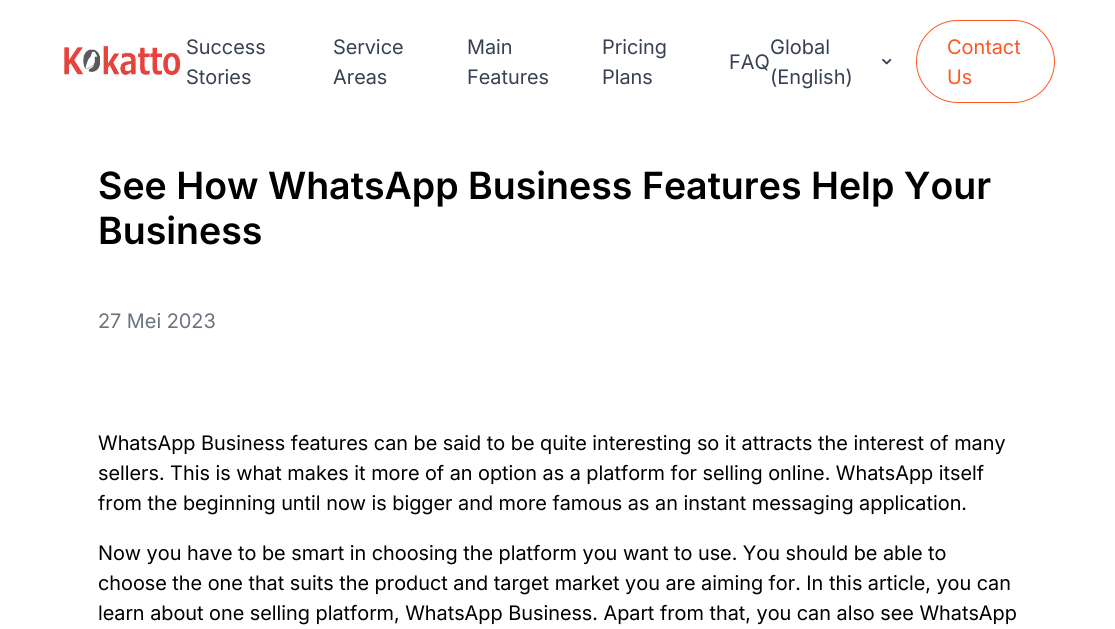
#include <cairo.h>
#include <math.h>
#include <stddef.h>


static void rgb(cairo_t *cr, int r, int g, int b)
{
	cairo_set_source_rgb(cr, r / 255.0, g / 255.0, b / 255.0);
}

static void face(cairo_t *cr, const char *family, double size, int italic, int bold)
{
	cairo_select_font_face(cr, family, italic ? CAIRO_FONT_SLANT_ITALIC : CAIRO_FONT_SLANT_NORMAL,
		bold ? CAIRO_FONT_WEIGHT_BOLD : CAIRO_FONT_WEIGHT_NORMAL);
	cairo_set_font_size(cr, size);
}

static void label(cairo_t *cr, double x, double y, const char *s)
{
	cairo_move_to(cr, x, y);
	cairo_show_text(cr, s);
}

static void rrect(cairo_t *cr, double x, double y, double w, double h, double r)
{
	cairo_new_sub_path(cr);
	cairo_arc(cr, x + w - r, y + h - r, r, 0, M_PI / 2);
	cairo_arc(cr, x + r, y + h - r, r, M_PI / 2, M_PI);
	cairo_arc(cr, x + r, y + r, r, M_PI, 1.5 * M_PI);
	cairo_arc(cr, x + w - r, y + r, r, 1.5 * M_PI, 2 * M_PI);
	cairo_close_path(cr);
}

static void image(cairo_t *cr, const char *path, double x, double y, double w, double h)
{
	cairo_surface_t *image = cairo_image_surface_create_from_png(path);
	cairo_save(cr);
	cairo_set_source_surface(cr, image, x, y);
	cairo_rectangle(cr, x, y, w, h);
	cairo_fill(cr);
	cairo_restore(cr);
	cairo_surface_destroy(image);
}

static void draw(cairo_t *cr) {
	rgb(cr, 255, 255, 255);
	cairo_paint(cr);
	image(cr, "image0.png", 64, 45, 117, 30);
	face(cr, "Inter", 20, 0, 0);
	rgb(cr, 55, 65, 81);
	label(cr, 186, 54, "Success");
	label(cr, 186, 84, "Stories");
	label(cr, 333, 54, "Service");
	label(cr, 333, 84, "Areas");
	label(cr, 467, 54, "Main");
	label(cr, 467, 84, "Features");
	label(cr, 602, 54, "Pricing");
	label(cr, 602, 84, "Plans");
	label(cr, 729, 69, "FAQ");
	face(cr, "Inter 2", 20, 0, 0);
	label(cr, 770, 54, "Global");
	label(cr, 770, 84, "(English)");
	image(cr, "image1.png", 882, 58, 10, 7);
	rrect(cr, 916.5, 20.5, 138, 82, 41);
	rgb(cr, 255, 87, 34);
	cairo_set_line_width(cr, 1);
	cairo_stroke(cr);
	face(cr, "Inter", 20, 0, 0);
	label(cr, 947, 54, "Contact");
	label(cr, 947, 84, "Us");
	face(cr, "Inter SemiBold", 37.5, 0, 0);
	rgb(cr, 0, 0, 0);
	label(cr, 98, 199, "See How WhatsApp Business Features Help Your");
	label(cr, 98, 244, "Business");
	face(cr, "Inter", 20, 0, 0);
	rgb(cr, 107, 114, 128);
	label(cr, 98, 328, "27 Mei 2023");
	rgb(cr, 0, 0, 0);
	label(cr, 98, 450, "WhatsApp Business features can be said to be quite interesting so it attracts the interest of many");
	label(cr, 98, 480, "sellers. This is what makes it more of an option as a platform for selling online. WhatsApp itself");
	label(cr, 98, 510, "from the beginning until now is bigger and more famous as an instant messaging application.");
	label(cr, 98, 560, "Now you have to be smart in choosing the platform you want to use. You should be able to");
	label(cr, 98, 590, "choose the one that suits the product and target market you are aiming for. In this article, you can");
	label(cr, 98, 620, "learn about one selling platform, WhatsApp Business. Apart from that, you can also see WhatsApp");
}

int main(void) {
	cairo_surface_t *surface = cairo_image_surface_create(CAIRO_FORMAT_RGB24, 1115, 629);
	cairo_t *cr = cairo_create(surface);
	cairo_font_options_t *options = cairo_font_options_create();
	cairo_font_options_set_hint_metrics(options, CAIRO_HINT_METRICS_OFF);
	cairo_font_options_set_hint_style(options, CAIRO_HINT_STYLE_NONE);
	cairo_set_font_options(cr, options);
	cairo_set_miter_limit(cr, 4);
	draw(cr);
	cairo_surface_write_to_png(surface, "render.png");
	cairo_font_options_destroy(options);
	cairo_destroy(cr);
	cairo_surface_destroy(surface);
	return 0;
}
